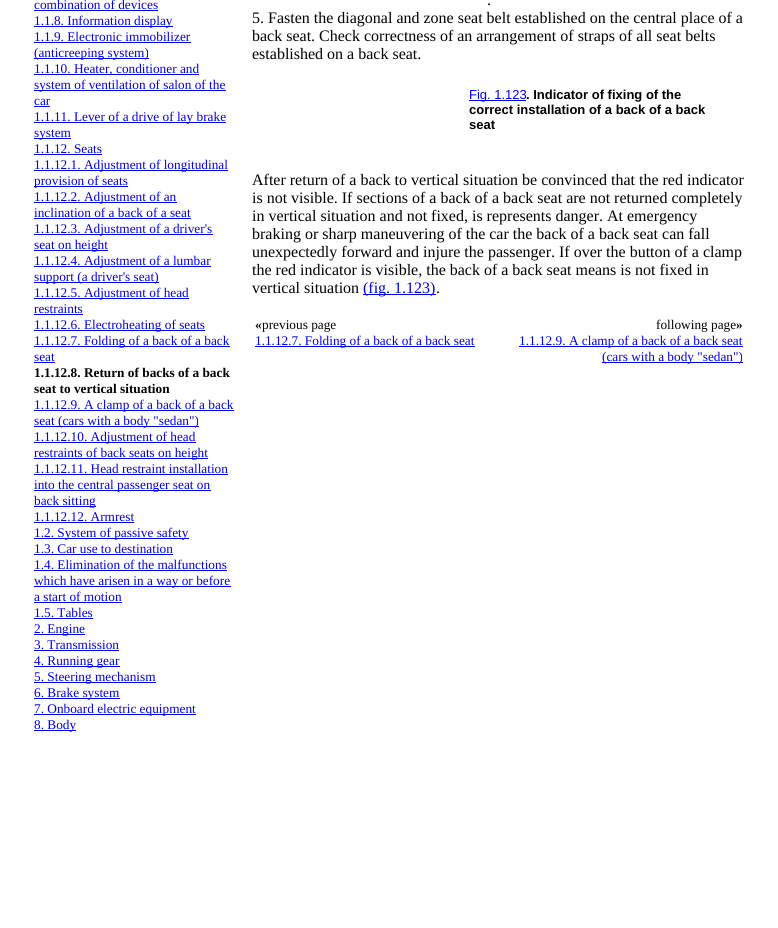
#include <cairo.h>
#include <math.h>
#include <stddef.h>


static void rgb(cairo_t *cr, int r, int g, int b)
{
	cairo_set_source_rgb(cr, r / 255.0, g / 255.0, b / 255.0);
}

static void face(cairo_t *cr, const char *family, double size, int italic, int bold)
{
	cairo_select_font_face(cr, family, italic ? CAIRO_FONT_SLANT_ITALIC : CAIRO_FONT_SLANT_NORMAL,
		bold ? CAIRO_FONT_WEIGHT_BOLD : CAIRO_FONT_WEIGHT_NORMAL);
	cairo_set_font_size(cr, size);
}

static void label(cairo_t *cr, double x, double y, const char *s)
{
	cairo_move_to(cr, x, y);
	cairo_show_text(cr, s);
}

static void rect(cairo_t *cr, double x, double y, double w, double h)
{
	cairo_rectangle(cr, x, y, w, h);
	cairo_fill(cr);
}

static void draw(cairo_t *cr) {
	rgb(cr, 255, 255, 255);
	cairo_paint(cr);
	face(cr, "Liberation Serif", 13.3, 0, 0);
	rgb(cr, 0, 0, 238);
	label(cr, 34, 9, "combination of devices");
	rect(cr, 34, 10, 124, 1);
	rect(cr, 34, 26, 139, 1);
	label(cr, 34, 25, "1.1.8. Information display");
	label(cr, 34, 41, "1.1.9. Electronic immobilizer");
	rect(cr, 34, 42, 157, 1);
	rect(cr, 34, 58, 115, 1);
	label(cr, 34, 57, "(anticreeping system)");
	rect(cr, 34, 74, 165, 1);
	label(cr, 34, 73, "1.1.10. Heater, conditioner and");
	rect(cr, 34, 90, 192, 1);
	label(cr, 34, 89, "system of ventilation of salon of the");
	label(cr, 34, 105, "car");
	rect(cr, 34, 106, 16, 1);
	rect(cr, 34, 122, 192, 1);
	label(cr, 34, 121, "1.1.11. Lever of a drive of lay brake");
	rect(cr, 34, 138, 37, 1);
	label(cr, 34, 137, "system");
	label(cr, 34, 153, "1.1.12. Seats");
	rect(cr, 34, 154, 68, 1);
	rect(cr, 34, 170, 194, 1);
	label(cr, 34, 169, "1.1.12.1. Adjustment of longitudinal");
	rect(cr, 34, 186, 94, 1);
	label(cr, 34, 185, "provision of seats");
	rect(cr, 34, 202, 143, 1);
	label(cr, 34, 201, "1.1.12.2. Adjustment of an");
	label(cr, 34, 217, "inclination of a back of a seat");
	rect(cr, 34, 218, 157, 1);
	rect(cr, 34, 234, 179, 1);
	label(cr, 34, 233, "1.1.12.3. Adjustment of a driver's");
	rect(cr, 34, 250, 74, 1);
	label(cr, 34, 249, "seat on height");
	rect(cr, 34, 266, 177, 1);
	label(cr, 34, 265, "1.1.12.4. Adjustment of a lumbar");
	rect(cr, 34, 282, 125, 1);
	label(cr, 34, 281, "support (a driver's seat)");
	rect(cr, 34, 298, 155, 1);
	label(cr, 34, 297, "1.1.12.5. Adjustment of head");
	label(cr, 34, 313, "restraints");
	rect(cr, 34, 314, 49, 1);
	rect(cr, 34, 330, 171, 1);
	label(cr, 34, 329, "1.1.12.6. Electroheating of seats");
	rect(cr, 34, 346, 196, 1);
	label(cr, 34, 345, "1.1.12.7. Folding of a back of a back");
	label(cr, 34, 361, "seat");
	rect(cr, 34, 362, 21, 1);
	face(cr, "Liberation Serif", 13.3, 0, 1);
	rgb(cr, 0, 0, 0);
	label(cr, 34, 377, "1.1.12.8. Return of backs of a back");
	label(cr, 34, 393, "seat to vertical situation");
	rgb(cr, 0, 0, 238);
	rect(cr, 34, 410, 200, 1);
	face(cr, "Liberation Serif", 13.3, 0, 0);
	label(cr, 34, 409, "1.1.12.9. A clamp of a back of a back");
	rect(cr, 34, 426, 165, 1);
	label(cr, 34, 425, "seat (cars with a body \"sedan\")");
	rect(cr, 34, 442, 162, 1);
	label(cr, 34, 441, "1.1.12.10. Adjustment of head");
	rect(cr, 34, 458, 174, 1);
	label(cr, 34, 457, "restraints of back seats on height");
	label(cr, 34, 473, "1.1.12.11. Head restraint installation");
	rect(cr, 34, 474, 194, 1);
	rect(cr, 34, 490, 177, 1);
	label(cr, 34, 489, "into the central passenger seat on");
	rect(cr, 34, 506, 62, 1);
	label(cr, 34, 505, "back sitting");
	label(cr, 34, 521, "1.1.12.12. Armrest");
	rect(cr, 34, 522, 100, 1);
	rect(cr, 34, 538, 155, 1);
	label(cr, 34, 537, "1.2. System of passive safety");
	label(cr, 34, 553, "1.3. Car use to destination");
	rect(cr, 34, 554, 139, 1);
	label(cr, 34, 569, "1.4. Elimination of the malfunctions");
	rect(cr, 34, 570, 193, 1);
	rect(cr, 34, 586, 197, 1);
	label(cr, 34, 585, "which have arisen in a way or before");
	label(cr, 34, 601, "a start of motion");
	rect(cr, 34, 602, 88, 1);
	label(cr, 34, 617, "1.5. Tables");
	rect(cr, 34, 618, 59, 1);
	rect(cr, 34, 634, 51, 1);
	label(cr, 34, 633, "2. Engine");
	label(cr, 34, 649, "3. Transmission");
	rect(cr, 34, 650, 85, 1);
	rect(cr, 34, 666, 86, 1);
	label(cr, 34, 665, "4. Running gear");
	rect(cr, 34, 682, 122, 1);
	label(cr, 34, 681, "5. Steering mechanism");
	rect(cr, 34, 698, 86, 1);
	label(cr, 34, 697, "6. Brake system");
	rect(cr, 34, 714, 162, 1);
	label(cr, 34, 713, "7. Onboard electric equipment");
	rect(cr, 34, 730, 42, 1);
	label(cr, 34, 729, "8. Body");
	face(cr, "Liberation Serif", 16, 0, 0);
	rgb(cr, 0, 0, 0);
	label(cr, 487, 5, ".");
	label(cr, 252, 23, "5. Fasten the diagonal and zone seat belt established on the central place of a");
	label(cr, 252, 41, "back seat. Check correctness of an arrangement of straps of all seat belts");
	label(cr, 252, 59, "established on a back seat.");
	rgb(cr, 0, 0, 238);
	rect(cr, 469, 100, 57, 1);
	face(cr, "Liberation Sans", 13, 0, 0);
	label(cr, 469, 99, "Fig. 1.123");
	face(cr, "Liberation Sans", 13, 0, 1);
	rgb(cr, 0, 0, 0);
	label(cr, 526, 99, ". Indicator of fixing of the");
	label(cr, 469, 114, "correct installation of a back of a back");
	label(cr, 469, 129, "seat");
	face(cr, "Liberation Serif", 16, 0, 0);
	label(cr, 252, 185, "After return of a back to vertical situation be convinced that the red indicator");
	label(cr, 252, 203, "is not visible. If sections of a back of a back seat are not returned completely");
	label(cr, 252, 221, "in vertical situation and not fixed, is represents danger. At emergency");
	label(cr, 252, 239, "braking or sharp maneuvering of the car the back of a back seat can fall");
	label(cr, 252, 257, "unexpectedly forward and injure the passenger. If over the button of a clamp");
	label(cr, 252, 275, "the red indicator is visible, the back of a back seat means is not fixed in");
	label(cr, 252, 293, "vertical situation");
	rgb(cr, 0, 0, 238);
	rect(cr, 363, 294, 73, 1);
	label(cr, 363, 293, "(fig. 1.123)");
	rgb(cr, 0, 0, 0);
	label(cr, 436, 293, ".");
	face(cr, "Liberation Serif", 13.3, 0, 1);
	label(cr, 255, 329, "«");
	face(cr, "Liberation Serif", 13.3, 0, 0);
	label(cr, 262, 329, "previous page");
	rgb(cr, 0, 0, 238);
	rect(cr, 255, 346, 220, 1);
	label(cr, 255, 345, "1.1.12.7. Folding of a back of a back seat");
	rgb(cr, 0, 0, 0);
	label(cr, 656, 329, "following page");
	face(cr, "Liberation Serif", 13.3, 0, 1);
	label(cr, 736, 329, "»");
	rgb(cr, 0, 0, 238);
	rect(cr, 519, 346, 224, 1);
	face(cr, "Liberation Serif", 13.3, 0, 0);
	label(cr, 519, 345, "1.1.12.9. A clamp of a back of a back seat");
	rect(cr, 602, 362, 141, 1);
	label(cr, 602, 361, "(cars with a body \"sedan\")");
}

int main(void) {
	cairo_surface_t *surface = cairo_image_surface_create(CAIRO_FORMAT_RGB24, 778, 928);
	cairo_t *cr = cairo_create(surface);
	cairo_font_options_t *options = cairo_font_options_create();
	cairo_font_options_set_hint_metrics(options, CAIRO_HINT_METRICS_OFF);
	cairo_font_options_set_hint_style(options, CAIRO_HINT_STYLE_NONE);
	cairo_set_font_options(cr, options);
	cairo_set_miter_limit(cr, 4);
	draw(cr);
	cairo_surface_write_to_png(surface, "render.png");
	cairo_font_options_destroy(options);
	cairo_destroy(cr);
	cairo_surface_destroy(surface);
	return 0;
}
